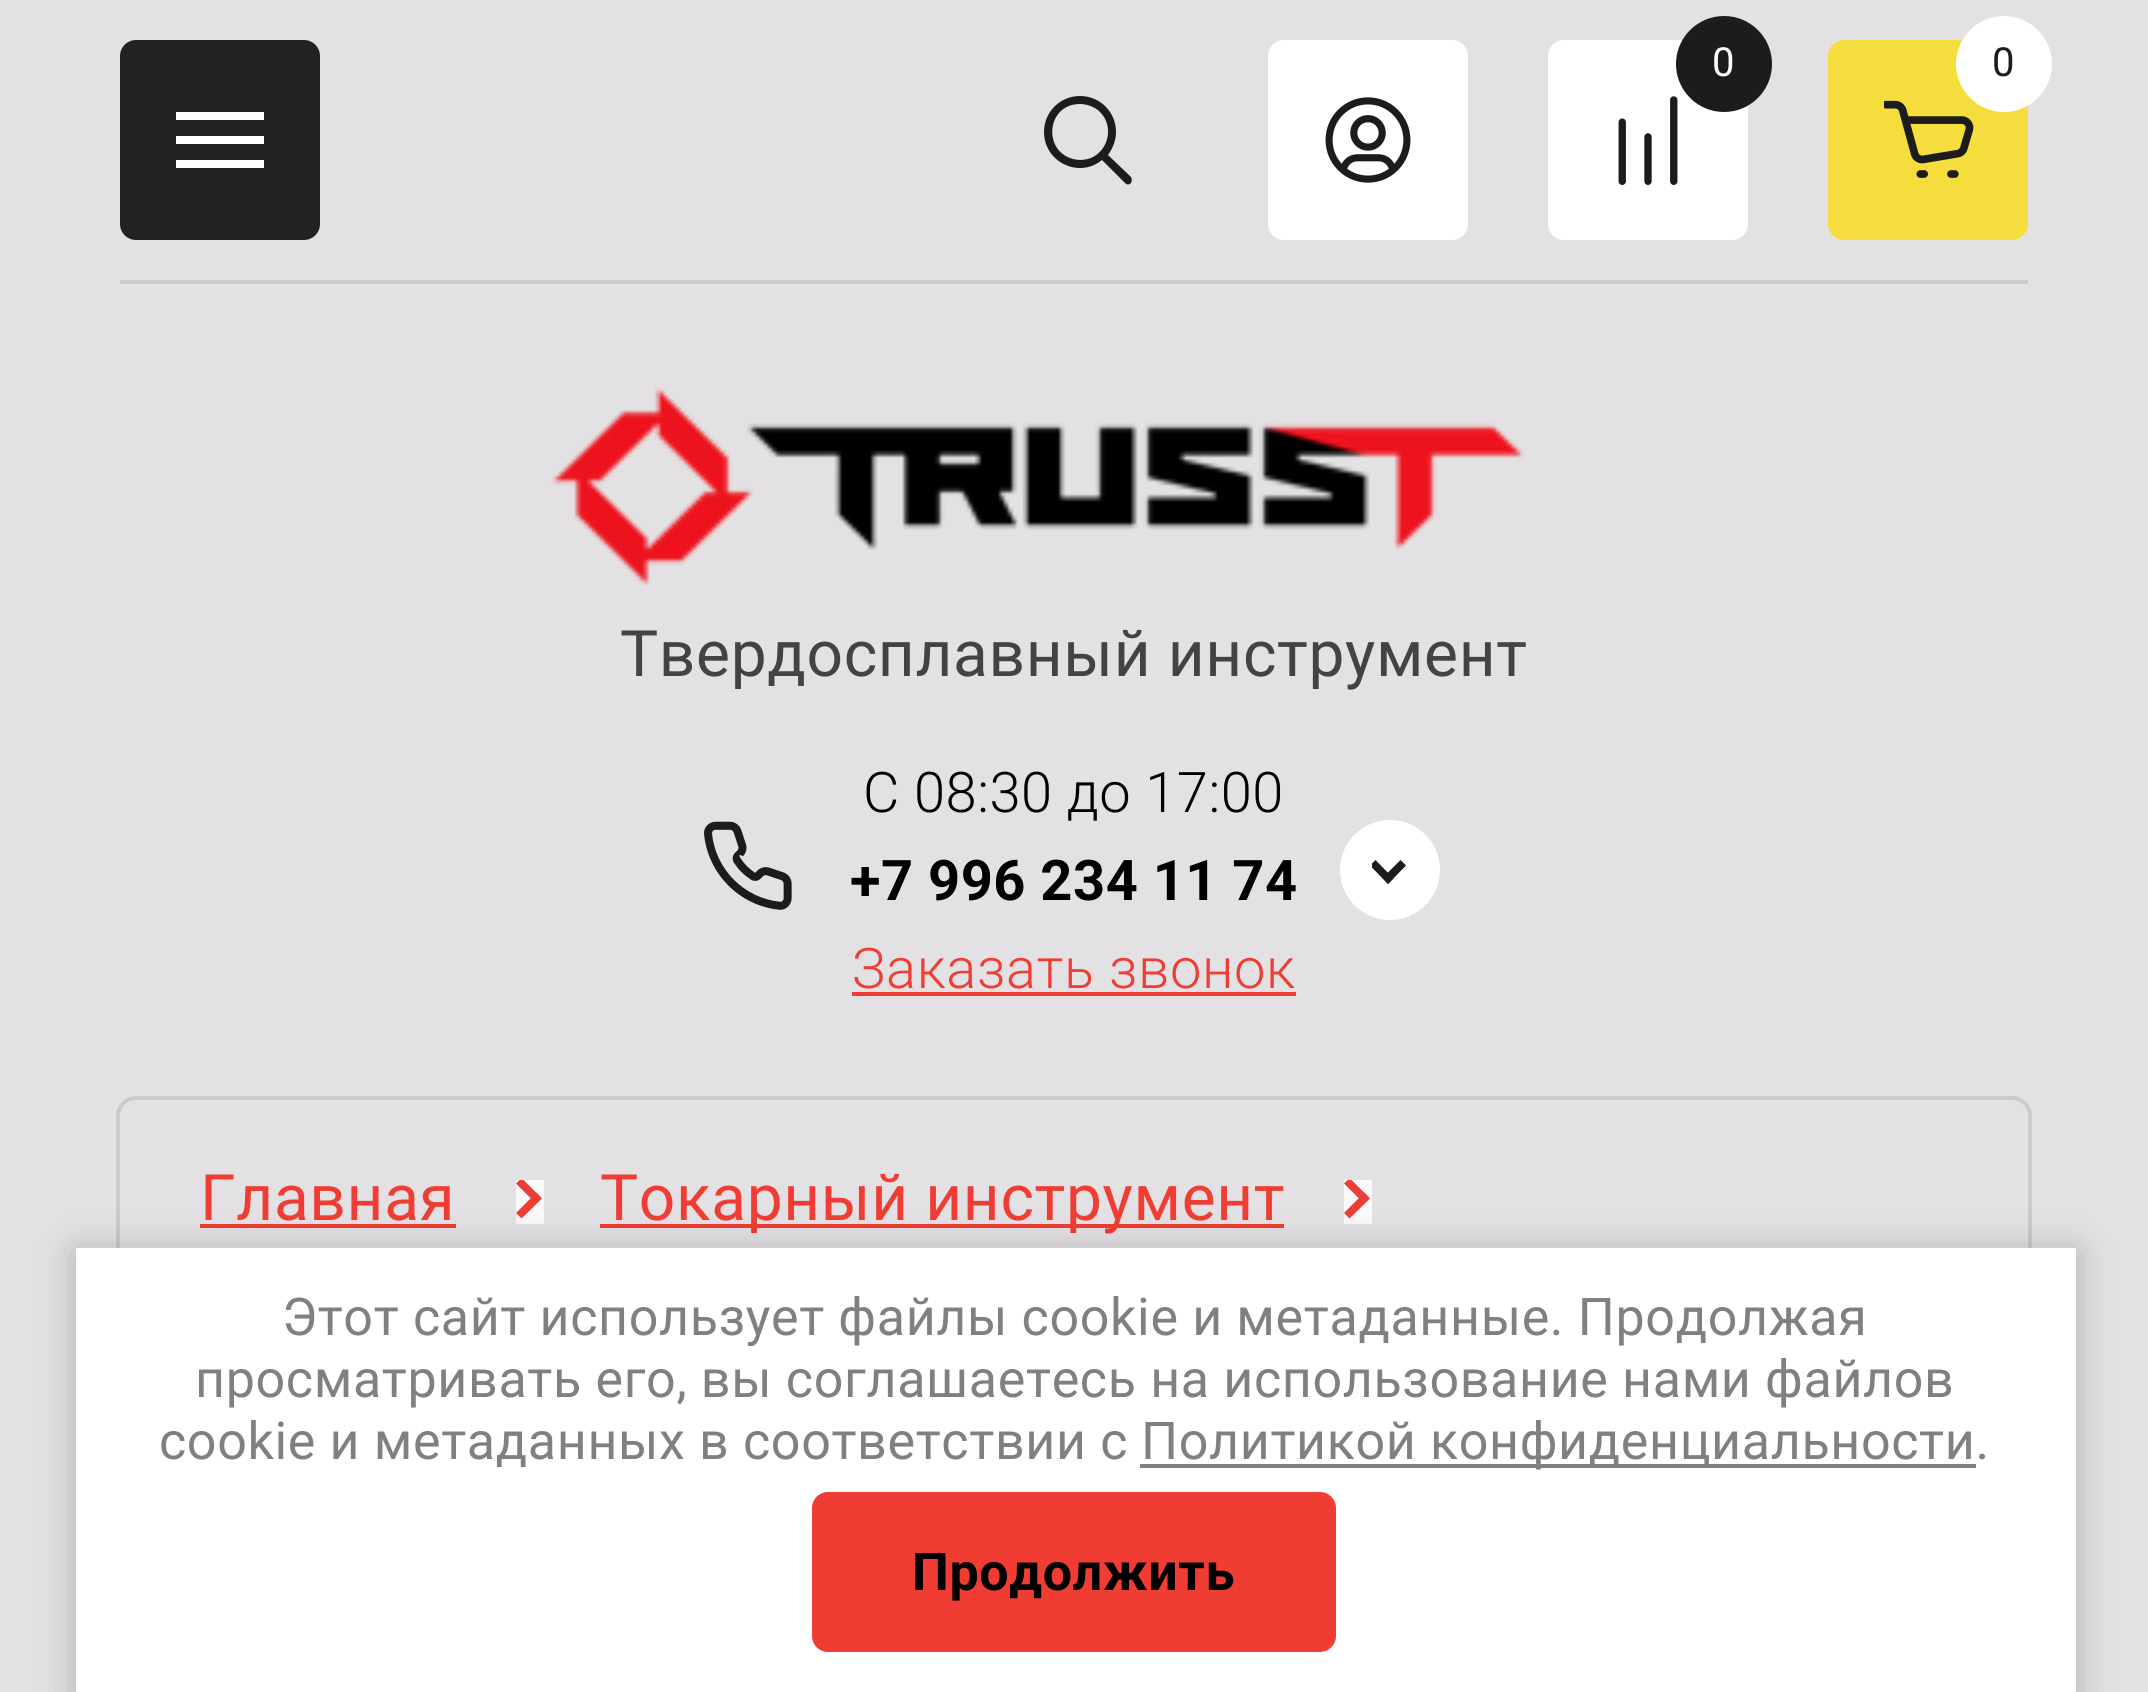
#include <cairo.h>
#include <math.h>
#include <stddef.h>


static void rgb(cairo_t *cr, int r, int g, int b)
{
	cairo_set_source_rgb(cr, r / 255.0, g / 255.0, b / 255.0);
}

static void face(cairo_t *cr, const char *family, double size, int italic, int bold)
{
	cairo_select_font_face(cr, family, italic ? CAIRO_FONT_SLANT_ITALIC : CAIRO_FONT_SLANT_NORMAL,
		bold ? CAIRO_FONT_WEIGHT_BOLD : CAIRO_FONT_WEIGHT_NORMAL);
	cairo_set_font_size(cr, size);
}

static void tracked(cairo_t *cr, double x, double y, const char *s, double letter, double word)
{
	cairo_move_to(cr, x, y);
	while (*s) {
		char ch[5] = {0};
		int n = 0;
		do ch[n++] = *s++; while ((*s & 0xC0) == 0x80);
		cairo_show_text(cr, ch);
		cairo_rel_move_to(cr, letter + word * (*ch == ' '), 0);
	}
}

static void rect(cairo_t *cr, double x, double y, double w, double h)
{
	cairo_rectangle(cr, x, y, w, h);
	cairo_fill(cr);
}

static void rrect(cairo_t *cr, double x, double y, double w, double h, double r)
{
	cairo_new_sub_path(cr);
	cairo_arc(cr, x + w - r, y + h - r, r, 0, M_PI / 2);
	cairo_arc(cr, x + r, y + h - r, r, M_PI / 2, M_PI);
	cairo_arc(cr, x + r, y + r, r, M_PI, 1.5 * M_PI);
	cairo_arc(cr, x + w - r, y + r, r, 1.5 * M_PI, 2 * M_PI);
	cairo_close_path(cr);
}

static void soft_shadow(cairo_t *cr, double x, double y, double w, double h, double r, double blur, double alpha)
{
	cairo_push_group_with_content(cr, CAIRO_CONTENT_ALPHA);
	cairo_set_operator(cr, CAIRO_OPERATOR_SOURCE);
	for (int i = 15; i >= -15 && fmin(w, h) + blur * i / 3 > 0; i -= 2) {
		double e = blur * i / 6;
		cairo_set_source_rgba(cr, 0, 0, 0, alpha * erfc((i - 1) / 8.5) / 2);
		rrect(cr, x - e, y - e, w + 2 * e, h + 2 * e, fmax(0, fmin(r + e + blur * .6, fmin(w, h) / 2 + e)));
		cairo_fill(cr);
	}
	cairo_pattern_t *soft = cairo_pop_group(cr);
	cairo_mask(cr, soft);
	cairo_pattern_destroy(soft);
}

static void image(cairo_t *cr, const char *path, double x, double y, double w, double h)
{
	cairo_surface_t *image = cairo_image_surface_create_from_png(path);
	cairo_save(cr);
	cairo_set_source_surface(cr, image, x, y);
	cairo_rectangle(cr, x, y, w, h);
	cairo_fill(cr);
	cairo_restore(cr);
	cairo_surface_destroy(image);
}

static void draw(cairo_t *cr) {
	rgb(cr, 227, 225, 227);
	cairo_paint(cr);
	rgb(cr, 204, 203, 204);
	rect(cr, 120, 280, 1908, 4);
	rgb(cr, 34, 34, 34);
	rrect(cr, 120, 40, 200, 200, 16);
	cairo_fill(cr);
	rgb(cr, 255, 255, 255);
	cairo_new_path(cr);
	cairo_move_to(cr, 176, 112);
	cairo_line_to(cr, 264, 112);
	cairo_line_to(cr, 264, 120);
	cairo_line_to(cr, 176, 120);
	cairo_close_path(cr);
	cairo_move_to(cr, 176, 136);
	cairo_line_to(cr, 264, 136);
	cairo_line_to(cr, 264, 144);
	cairo_line_to(cr, 176, 144);
	cairo_close_path(cr);
	cairo_move_to(cr, 176, 160);
	cairo_line_to(cr, 264, 160);
	cairo_line_to(cr, 264, 168);
	cairo_line_to(cr, 176, 168);
	cairo_close_path(cr);
	cairo_fill(cr);
	rrect(cr, 1268, 40, 200, 200, 16);
	cairo_fill(cr);
	image(cr, "image0.png", 1325, 97, 86, 86);
	rrect(cr, 1548, 40, 200, 200, 16);
	cairo_fill(cr);
	rgb(cr, 28, 28, 28);
	cairo_arc(cr, 1724, 64, 48, 0, 2 * M_PI);
	cairo_fill(cr);
	face(cr, "Roboto", 40, 0, 0);
	rgb(cr, 255, 255, 255);
	tracked(cr, 1712, 76, "0", 0.65, 0);
	image(cr, "image1.png", 1618, 96, 60, 89);
	rgb(cr, 245, 221, 62);
	rrect(cr, 1828, 40, 200, 200, 16);
	cairo_fill(cr);
	rgb(cr, 255, 255, 255);
	cairo_arc(cr, 2004, 64, 48, 0, 2 * M_PI);
	cairo_fill(cr);
	rgb(cr, 28, 28, 28);
	tracked(cr, 1992, 76, "0", 0.65, 0);
	image(cr, "image2.png", 1884, 100, 90, 78);
	cairo_set_fill_rule(cr, CAIRO_FILL_RULE_EVEN_ODD);
	cairo_new_path(cr);
	cairo_move_to(cr, 1080, 104);
	cairo_curve_to(cr, 1044, 104, 1042, 158, 1080, 160);
	cairo_curve_to(cr, 1084, 160, 1088, 159, 1091, 158);
	cairo_curve_to(cr, 1109, 150, 1114, 126, 1100, 112);
	cairo_curve_to(cr, 1095, 107, 1087, 104, 1080, 104);
	cairo_close_path(cr);
	cairo_move_to(cr, 1044, 132);
	cairo_curve_to(cr, 1044, 112, 1060, 96, 1080, 96);
	cairo_curve_to(cr, 1100, 96, 1116, 112, 1116, 132);
	cairo_curve_to(cr, 1116, 140, 1113, 148, 1108, 155);
	cairo_line_to(cr, 1131, 177);
	cairo_curve_to(cr, 1132, 179, 1132, 181, 1131, 183);
	cairo_curve_to(cr, 1129, 185, 1127, 185, 1125, 183);
	cairo_line_to(cr, 1102, 160);
	cairo_curve_to(cr, 1079, 179, 1044, 162, 1044, 132);
	cairo_close_path(cr);
	cairo_fill(cr);
	image(cr, "image3.png", 551, 387, 974, 199);
	face(cr, "Roboto", 64, 0, 0);
	rgb(cr, 68, 67, 68);
	tracked(cr, 620, 676, "Твердосплавный инструмент", 0.65, 0);
	face(cr, "Roboto Light", 56, 0, 0);
	rgb(cr, 0, 0, 0);
	tracked(cr, 863, 812, "C 08:30 до 17:00", 0.5, 0);
	image(cr, "image4.png", 704, 821, 88, 89);
	face(cr, "Roboto", 56, 0, 1);
	tracked(cr, 850, 900, "+7 996 234 11 74", 0.5, 0);
	rgb(cr, 255, 255, 255);
	cairo_new_path(cr);
	cairo_arc(cr, 1390, 870, 50, 0, 2 * M_PI);
	cairo_fill(cr);
	cairo_save(cr);
	cairo_set_fill_rule(cr, CAIRO_FILL_RULE_WINDING);
	cairo_rectangle(cr, 1372, 860, 34, 24);
	cairo_clip(cr);
	rgb(cr, 28, 28, 28);
	cairo_new_path(cr);
	cairo_move_to(cr, 1370, 865.5);
	cairo_line_to(cr, 1375.5, 860);
	cairo_line_to(cr, 1393.5, 878.5);
	cairo_line_to(cr, 1388, 884);
	cairo_close_path(cr);
	cairo_fill(cr);
	cairo_restore(cr);
	rgb(cr, 28, 28, 28);
	cairo_set_fill_rule(cr, CAIRO_FILL_RULE_WINDING);
	cairo_new_path(cr);
	cairo_move_to(cr, 1400.5, 860);
	cairo_line_to(cr, 1406, 865.5);
	cairo_line_to(cr, 1388, 884);
	cairo_line_to(cr, 1382.5, 878);
	cairo_close_path(cr);
	cairo_fill(cr);
	face(cr, "Roboto Light", 56, 0, 0);
	rgb(cr, 240, 61, 51);
	tracked(cr, 852, 988, "Заказать звонок", 0.65, 0);
	rect(cr, 852, 992, 444, 4);
	rrect(cr, 118, 1098, 1912, 444, 18);
	rgb(cr, 204, 203, 204);
	cairo_set_line_width(cr, 4);
	cairo_stroke(cr);
	face(cr, "Roboto", 64, 0, 0);
	rgb(cr, 240, 61, 51);
	tracked(cr, 200, 1220, "Главная", 0.65, 0);
	rect(cr, 200, 1224, 256, 4);
	rgb(cr, 251, 249, 251);
	rect(cr, 516, 1180, 28, 44);
	cairo_save(cr);
	cairo_rectangle(cr, 516, 1180, 28, 44);
	cairo_clip(cr);
	rgb(cr, 240, 61, 51);
	cairo_new_path(cr);
	cairo_move_to(cr, 516, 1183.5);
	cairo_line_to(cr, 521.5, 1178);
	cairo_line_to(cr, 540.5, 1197);
	cairo_line_to(cr, 535, 1202.5);
	cairo_close_path(cr);
	cairo_fill(cr);
	cairo_restore(cr);
	rgb(cr, 240, 61, 51);
	cairo_new_path(cr);
	cairo_move_to(cr, 521.5, 1218.5);
	cairo_line_to(cr, 516, 1213);
	cairo_line_to(cr, 536.5, 1192.5);
	cairo_line_to(cr, 542, 1198.5);
	cairo_close_path(cr);
	cairo_fill(cr);
	rect(cr, 600, 1224, 684, 4);
	tracked(cr, 600, 1220, "Токарный инструмент", 0.65, 0);
	rgb(cr, 251, 249, 251);
	rect(cr, 1344, 1180, 28, 44);
	cairo_save(cr);
	cairo_rectangle(cr, 1344, 1180, 28, 44);
	cairo_clip(cr);
	rgb(cr, 240, 61, 51);
	cairo_new_path(cr);
	cairo_move_to(cr, 1344, 1183.5);
	cairo_line_to(cr, 1349.5, 1178);
	cairo_line_to(cr, 1368.5, 1197);
	cairo_line_to(cr, 1363, 1202.5);
	cairo_close_path(cr);
	cairo_fill(cr);
	cairo_restore(cr);
	rgb(cr, 240, 61, 51);
	cairo_new_path(cr);
	cairo_move_to(cr, 1349.5, 1218.5);
	cairo_line_to(cr, 1344, 1213);
	cairo_line_to(cr, 1364.5, 1192.5);
	cairo_line_to(cr, 1370, 1198.5);
	cairo_close_path(cr);
	cairo_fill(cr);
	rgb(cr, 0, 0, 0);
	soft_shadow(cr, 76, 1252, 2000, 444, 0, 20, 0.23);
	rgb(cr, 255, 255, 255);
	rect(cr, 76, 1248, 2000, 444);
	face(cr, "Roboto", 52, 0, 0);
	rgb(cr, 128, 128, 128);
	tracked(cr, 282, 1335, "Этот сайт использует файлы cookie и метаданные. Продолжая", 0.65, 0);
	tracked(cr, 195, 1397, "просматривать его, вы соглашаетесь на использование нами файлов", 0.65, 0);
	tracked(cr, 159, 1459, "cookie и метаданных в соответствии с", 0.65, 0);
	rect(cr, 1140, 1464, 836, 4);
	tracked(cr, 1141, 1459, "Политикой конфиденциальности.", 0.65, 0);
	rgb(cr, 240, 61, 51);
	rrect(cr, 812, 1492, 524, 160, 16);
	cairo_fill(cr);
	face(cr, "Roboto", 52, 0, 1);
	rgb(cr, 0, 0, 0);
	tracked(cr, 912, 1590, "Продолжить", 0.65, 0);
}

int main(void) {
	cairo_surface_t *surface = cairo_image_surface_create(CAIRO_FORMAT_RGB24, 2148, 1692);
	cairo_t *cr = cairo_create(surface);
	cairo_font_options_t *options = cairo_font_options_create();
	cairo_font_options_set_hint_metrics(options, CAIRO_HINT_METRICS_OFF);
	cairo_font_options_set_hint_style(options, CAIRO_HINT_STYLE_NONE);
	cairo_set_font_options(cr, options);
	cairo_set_miter_limit(cr, 4);
	draw(cr);
	cairo_surface_write_to_png(surface, "render.png");
	cairo_font_options_destroy(options);
	cairo_destroy(cr);
	cairo_surface_destroy(surface);
	return 0;
}
